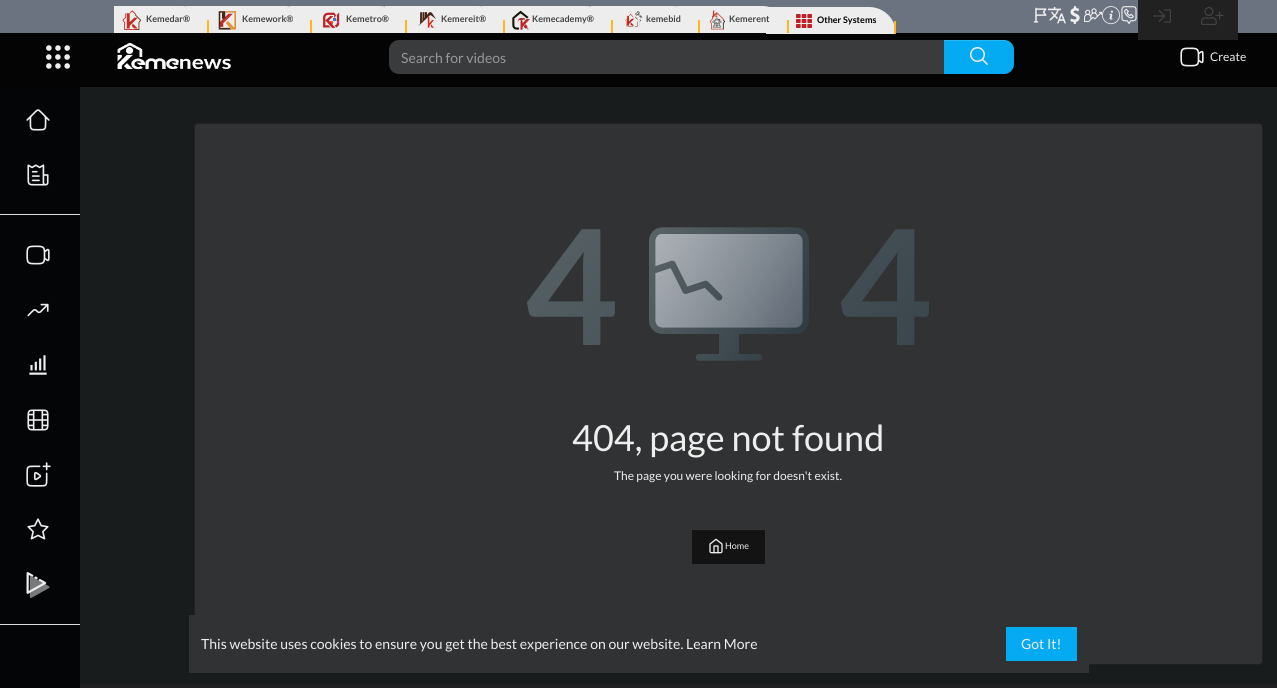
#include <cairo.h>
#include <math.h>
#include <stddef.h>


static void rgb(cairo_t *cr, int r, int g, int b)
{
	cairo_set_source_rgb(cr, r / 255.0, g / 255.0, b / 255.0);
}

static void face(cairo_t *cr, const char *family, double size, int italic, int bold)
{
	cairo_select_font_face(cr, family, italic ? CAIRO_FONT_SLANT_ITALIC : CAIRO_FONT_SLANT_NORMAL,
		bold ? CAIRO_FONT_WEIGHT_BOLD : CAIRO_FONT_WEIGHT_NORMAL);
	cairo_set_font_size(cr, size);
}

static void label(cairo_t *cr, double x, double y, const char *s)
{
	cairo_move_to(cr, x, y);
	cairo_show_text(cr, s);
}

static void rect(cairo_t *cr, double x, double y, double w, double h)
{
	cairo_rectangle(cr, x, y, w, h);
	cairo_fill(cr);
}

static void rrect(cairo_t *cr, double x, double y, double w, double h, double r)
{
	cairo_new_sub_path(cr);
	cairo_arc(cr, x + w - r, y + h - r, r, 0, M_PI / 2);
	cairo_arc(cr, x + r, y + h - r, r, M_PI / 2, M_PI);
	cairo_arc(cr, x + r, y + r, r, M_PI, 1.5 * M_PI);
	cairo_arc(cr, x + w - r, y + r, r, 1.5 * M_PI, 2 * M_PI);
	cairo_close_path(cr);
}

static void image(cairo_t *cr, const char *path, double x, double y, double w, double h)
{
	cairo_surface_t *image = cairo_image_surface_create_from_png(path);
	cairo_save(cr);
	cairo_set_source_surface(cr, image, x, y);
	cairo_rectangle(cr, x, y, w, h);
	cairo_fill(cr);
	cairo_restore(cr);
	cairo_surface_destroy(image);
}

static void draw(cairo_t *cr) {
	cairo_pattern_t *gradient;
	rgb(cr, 25, 28, 29);
	cairo_paint(cr);
	rgb(cr, 5, 4, 4);
	rect(cr, 0, 33, 1277, 54);
	rgb(cr, 107, 114, 128);
	rect(cr, 0, 0, 1277, 33);
	rgb(cr, 237, 237, 237);
	cairo_new_path(cr);
	cairo_move_to(cr, 766, 7);
	cairo_line_to(cr, 869, 7);
	cairo_curve_to(cr, 884, 7, 896, 19, 896, 34);
	cairo_line_to(cr, 766, 34);
	cairo_close_path(cr);
	cairo_fill(cr);
	cairo_new_path(cr);
	cairo_move_to(cr, 677, 6);
	cairo_line_to(cr, 762, 6);
	cairo_curve_to(cr, 777, 6, 789, 18, 789, 33);
	cairo_line_to(cr, 677, 33);
	cairo_close_path(cr);
	cairo_fill(cr);
	cairo_new_path(cr);
	cairo_move_to(cr, 591, 6);
	cairo_line_to(cr, 673, 6);
	cairo_curve_to(cr, 688, 6, 700, 18, 700, 33);
	cairo_line_to(cr, 591, 33);
	cairo_close_path(cr);
	cairo_fill(cr);
	cairo_new_path(cr);
	cairo_move_to(cr, 482, 6);
	cairo_line_to(cr, 586, 6);
	cairo_curve_to(cr, 601, 6, 613, 18, 613, 33);
	cairo_line_to(cr, 482, 33);
	cairo_close_path(cr);
	cairo_fill(cr);
	cairo_new_path(cr);
	cairo_move_to(cr, 385, 6);
	cairo_line_to(cr, 478, 6);
	cairo_curve_to(cr, 493, 6, 505, 18, 505, 33);
	cairo_line_to(cr, 385, 33);
	cairo_close_path(cr);
	cairo_fill(cr);
	cairo_new_path(cr);
	cairo_move_to(cr, 290, 6);
	cairo_line_to(cr, 380, 6);
	cairo_curve_to(cr, 395, 6, 407, 18, 407, 33);
	cairo_line_to(cr, 290, 33);
	cairo_close_path(cr);
	cairo_fill(cr);
	cairo_new_path(cr);
	cairo_move_to(cr, 186, 6);
	cairo_line_to(cr, 285, 6);
	cairo_curve_to(cr, 300, 6, 312, 18, 312, 33);
	cairo_line_to(cr, 186, 33);
	cairo_close_path(cr);
	cairo_fill(cr);
	cairo_new_path(cr);
	cairo_move_to(cr, 114, 6);
	cairo_line_to(cr, 182, 6);
	cairo_curve_to(cr, 197, 6, 209, 18, 209, 33);
	cairo_line_to(cr, 114, 33);
	cairo_close_path(cr);
	cairo_fill(cr);
	rgb(cr, 255, 183, 25);
	rect(cr, 207, 20, 2, 13);
	image(cr, "image1.png", 135, 14, 6, 16);
	image(cr, "image0.png", 122, 10, 16, 20);
	face(cr, "Lato", 9, 0, 1);
	rgb(cr, 68, 68, 68);
	label(cr, 146, 22, "Kemedar®");
	rgb(cr, 255, 183, 25);
	rect(cr, 310, 20, 2, 13);
	image(cr, "image5.png", 218, 13, 15, 15);
	image(cr, "image4.png", 225, 11, 12, 19);
	image(cr, "image2.png", 218, 11, 13, 19);
	image(cr, "image3.png", 219, 11, 17, 18);
	image(cr, "image6.png", 223, 13, 5, 14);
	rgb(cr, 68, 68, 68);
	label(cr, 242, 22, "Kemework®");
	rgb(cr, 255, 183, 25);
	rect(cr, 405, 20, 2, 13);
	rgb(cr, 244, 84, 36);
	rect(cr, 330, 21, 3, 3);
	image(cr, "image7.png", 323, 12, 17, 16);
	rgb(cr, 84, 244, 35);
	cairo_new_path(cr);
	cairo_move_to(cr, 335, 18.5);
	cairo_line_to(cr, 335, 21);
	cairo_line_to(cr, 337, 21);
	cairo_line_to(cr, 336.5, 19.5);
	cairo_close_path(cr);
	cairo_fill(cr);
	cairo_set_source_rgba(cr, 0.137, 0.329, 0.957, 0.82);
	rect(cr, 333, 18, 3, 3);
	image(cr, "image8.png", 337, 21, 2, 3);
	rgb(cr, 68, 68, 68);
	label(cr, 346, 22, "Kemetro®");
	rgb(cr, 255, 183, 25);
	rect(cr, 503, 20, 2, 13);
	image(cr, "image10.png", 420, 12, 13, 16);
	image(cr, "image12.png", 427, 16, 7, 12);
	image(cr, "image9.png", 418, 12, 18, 14);
	image(cr, "image11.png", 421, 12, 15, 16);
	rgb(cr, 234, 233, 233);
	rect(cr, 437, 18, 1, 1);
	rgb(cr, 68, 68, 68);
	label(cr, 441, 22, "Kemereit®");
	rgb(cr, 255, 183, 25);
	rect(cr, 611, 20, 2, 13);
	image(cr, "image13.png", 512, 10, 17, 20);
	image(cr, "image14.png", 517, 11, 13, 19);
	rgb(cr, 68, 68, 68);
	label(cr, 532, 22, "Kemecademy®");
	rgb(cr, 255, 183, 25);
	rect(cr, 698, 20, 2, 13);
	image(cr, "image15.png", 627, 14, 8, 13);
	image(cr, "image18.png", 635, 16, 3, 11);
	image(cr, "image16.png", 635, 11, 8, 8);
	image(cr, "image17.png", 625, 15, 5, 12);
	image(cr, "image19.png", 639, 19, 2, 8);
	rgb(cr, 68, 68, 68);
	label(cr, 646, 22, "kemebid");
	rgb(cr, 255, 183, 25);
	rect(cr, 787, 20, 2, 13);
	image(cr, "image21.png", 712, 18, 13, 12);
	image(cr, "image20.png", 709, 10, 15, 20);
	rgb(cr, 68, 68, 68);
	label(cr, 729, 22, "Kemerent");
	rgb(cr, 255, 183, 25);
	rect(cr, 894, 21, 2, 13);
	image(cr, "image22.png", 796, 14, 16, 14);
	rgb(cr, 0, 0, 0);
	label(cr, 817, 23, "Other Systems");
	image(cr, "image23.png", 1033, 7, 14, 16);
	image(cr, "image24.png", 1048, 6, 18, 18);
	image(cr, "image25.png", 1070, 6, 10, 19);
	image(cr, "image26.png", 1102, 6, 18, 19);
	image(cr, "image27.png", 1121, 6, 16, 18);
	rgb(cr, 33, 33, 33);
	rect(cr, 1138, 0, 100, 40);
	image(cr, "image28.png", 1153, 9, 18, 14);
	image(cr, "image29.png", 1084, 8, 18, 14);
	image(cr, "image30.png", 1201, 7, 23, 18);
	image(cr, "image31.png", 46, 45, 24, 24);
	image(cr, "image32.png", 117, 42, 114, 28);
	rgb(cr, 58, 59, 60);
	cairo_new_path(cr);
	cairo_move_to(cr, 399, 40);
	cairo_line_to(cr, 944, 40);
	cairo_line_to(cr, 944, 74);
	cairo_line_to(cr, 399, 74);
	cairo_curve_to(cr, 393.5, 74, 389, 69.5, 389, 64);
	cairo_line_to(cr, 389, 50);
	cairo_curve_to(cr, 389, 44.5, 393.5, 40, 399, 40);
	cairo_close_path(cr);
	cairo_fill(cr);
	face(cr, "Lato", 14, 0, 0);
	rgb(cr, 153, 153, 153);
	label(cr, 401, 63, "Search for videos");
	rgb(cr, 4, 171, 242);
	cairo_new_path(cr);
	cairo_move_to(cr, 944, 40);
	cairo_line_to(cr, 1004, 40);
	cairo_curve_to(cr, 1009.5, 40, 1014, 44.5, 1014, 50);
	cairo_line_to(cr, 1014, 64);
	cairo_curve_to(cr, 1014, 69.5, 1009.5, 74, 1004, 74);
	cairo_line_to(cr, 944, 74);
	cairo_close_path(cr);
	cairo_fill(cr);
	cairo_set_source_rgba(cr, 1, 1, 1, 0.15);
	cairo_new_path(cr);
	cairo_move_to(cr, 944, 41);
	cairo_line_to(cr, 1004, 41);
	cairo_curve_to(cr, 1010, 41, 1014, 45, 1014, 51);
	cairo_line_to(cr, 1014, 50);
	cairo_curve_to(cr, 1014, 44, 1010, 40, 1004, 40);
	cairo_line_to(cr, 944, 40);
	cairo_close_path(cr);
	cairo_fill(cr);
	image(cr, "image33.png", 970, 47, 18, 18);
	image(cr, "image34.png", 1180, 47, 24, 20);
	face(cr, "Lato", 12, 0, 0);
	rgb(cr, 238, 238, 238);
	label(cr, 1210, 61, "Create");
	rgb(cr, 3, 5, 7);
	rect(cr, 0, 87, 80, 601);
	rgb(cr, 221, 221, 221);
	rect(cr, 0, 214, 80, 1);
	image(cr, "image35.png", 26, 109, 24, 22);
	image(cr, "image36.png", 27, 164, 22, 22);
	rect(cr, 0, 624, 80, 1);
	image(cr, "image37.png", 26, 245, 24, 20);
	image(cr, "image38.png", 27, 303, 22, 14);
	image(cr, "image39.png", 29, 355, 18, 20);
	image(cr, "image40.png", 27, 409, 22, 22);
	image(cr, "image41.png", 26, 462, 25, 25);
	image(cr, "image42.png", 27, 518, 22, 22);
	image(cr, "image43.png", 26, 572, 24, 26);
	rrect(cr, 194.5, 123.5, 1068, 541, 3.5);
	rgb(cr, 33, 33, 33);
	cairo_set_line_width(cr, 1);
	cairo_stroke(cr);
	rgb(cr, 48, 50, 51);
	rrect(cr, 195, 124, 1067, 540, 3);
	cairo_fill(cr);
	face(cr, "Lato", 160, 0, 1);
	gradient = cairo_pattern_create_linear(579, 133, 878, 433);
	cairo_pattern_add_color_stop_rgba(gradient, 0, 0.349, 0.388, 0.408, 1);
	cairo_pattern_add_color_stop_rgba(gradient, 1, 0.22, 0.267, 0.29, 1);
	cairo_set_source(cr, gradient);
	cairo_pattern_destroy(gradient);
	label(cr, 525, 345, "4");
	image(cr, "image44.png", 649, 227, 160, 134);
	label(cr, 839, 345, "4");
	face(cr, "Lato", 36, 0, 0);
	rgb(cr, 238, 238, 238);
	label(cr, 572, 451, "404, page not found");
	face(cr, "Lato", 12, 0, 0);
	label(cr, 614, 480, "The page you were looking for doesn't exist.");
	rgb(cr, 19, 19, 19);
	rect(cr, 692, 530, 73, 34);
	rgb(cr, 54, 54, 54);
	rect(cr, 692, 529, 73, 1);
	image(cr, "image45.png", 709, 538, 14, 16);
	face(cr, "Lato", 9, 0, 0);
	rgb(cr, 238, 238, 238);
	label(cr, 725, 549, "Home");
	rgb(cr, 48, 50, 51);
	rect(cr, 189, 615, 900, 58);
	face(cr, "Lato", 14, 0, 0);
	rgb(cr, 238, 238, 238);
	label(cr, 201, 649, "This website uses cookies to ensure you get the best experience on our website. Learn More");
	rgb(cr, 4, 171, 242);
	rect(cr, 1006, 627, 71, 34);
	rgb(cr, 238, 238, 238);
	label(cr, 1021, 649, "Got It!");
	rgb(cr, 32, 32, 32);
	rect(cr, 80, 684, 1197, 4);
}

int main(void) {
	cairo_surface_t *surface = cairo_image_surface_create(CAIRO_FORMAT_RGB24, 1277, 688);
	cairo_t *cr = cairo_create(surface);
	cairo_font_options_t *options = cairo_font_options_create();
	cairo_font_options_set_hint_metrics(options, CAIRO_HINT_METRICS_OFF);
	cairo_font_options_set_hint_style(options, CAIRO_HINT_STYLE_NONE);
	cairo_set_font_options(cr, options);
	cairo_set_miter_limit(cr, 4);
	draw(cr);
	cairo_surface_write_to_png(surface, "render.png");
	cairo_font_options_destroy(options);
	cairo_destroy(cr);
	cairo_surface_destroy(surface);
	return 0;
}
